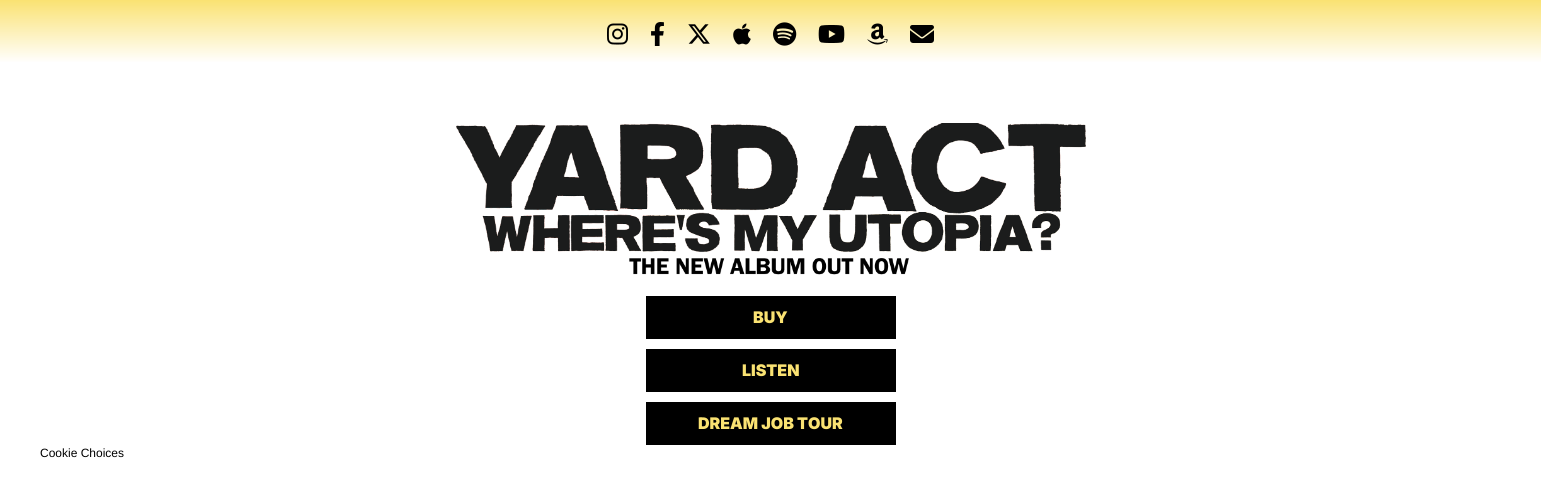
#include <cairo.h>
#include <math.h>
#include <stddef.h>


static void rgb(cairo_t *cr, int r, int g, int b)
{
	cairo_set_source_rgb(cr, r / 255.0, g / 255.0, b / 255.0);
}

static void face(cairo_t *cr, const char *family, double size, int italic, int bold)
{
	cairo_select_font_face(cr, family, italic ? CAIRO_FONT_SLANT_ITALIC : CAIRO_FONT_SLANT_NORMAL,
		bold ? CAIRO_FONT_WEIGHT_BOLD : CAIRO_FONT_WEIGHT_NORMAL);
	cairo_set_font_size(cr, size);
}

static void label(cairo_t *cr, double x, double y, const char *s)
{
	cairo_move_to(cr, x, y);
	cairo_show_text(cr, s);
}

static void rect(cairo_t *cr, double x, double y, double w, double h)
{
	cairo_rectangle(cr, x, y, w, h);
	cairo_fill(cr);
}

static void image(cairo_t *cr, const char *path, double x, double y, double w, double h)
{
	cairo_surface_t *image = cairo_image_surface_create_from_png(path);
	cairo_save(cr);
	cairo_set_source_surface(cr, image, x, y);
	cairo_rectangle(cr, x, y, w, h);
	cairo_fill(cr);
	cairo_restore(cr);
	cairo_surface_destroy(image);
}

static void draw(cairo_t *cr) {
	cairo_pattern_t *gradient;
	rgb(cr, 255, 255, 255);
	cairo_paint(cr);
	gradient = cairo_pattern_create_linear(771, 0, 771, 63);
	cairo_pattern_add_color_stop_rgba(gradient, 0, 0.98, 0.886, 0.447, 1);
	cairo_pattern_add_color_stop_rgba(gradient, 1, 1, 1, 1, 1);
	cairo_set_source(cr, gradient);
	cairo_pattern_destroy(gradient);
	rect(cr, 0, 0, 1541, 62);
	image(cr, "image0.png", 607, 23, 21, 22);
	image(cr, "image1.png", 651, 22, 13, 24);
	image(cr, "image2.png", 688, 24, 22, 20);
	image(cr, "image3.png", 733, 23, 18, 22);
	image(cr, "image4.png", 773, 22, 24, 24);
	image(cr, "image5.png", 818, 25, 27, 18);
	image(cr, "image6.png", 867, 23, 21, 22);
	image(cr, "image7.png", 910, 25, 24, 18);
	image(cr, "image8.png", 456, 123, 630, 152);
	rgb(cr, 0, 0, 0);
	rect(cr, 646, 296, 250, 43);
	face(cr, "Inter Black", 16, 0, 0);
	rgb(cr, 250, 226, 114);
	label(cr, 753, 323, "BUY");
	rgb(cr, 0, 0, 0);
	rect(cr, 646, 349, 250, 43);
	rgb(cr, 250, 226, 114);
	label(cr, 742, 376, "LISTEN");
	rgb(cr, 0, 0, 0);
	rect(cr, 646, 402, 250, 43);
	rgb(cr, 250, 226, 114);
	label(cr, 698, 429, "DREAM JOB TOUR");
	face(cr, "Liberation Sans", 12, 0, 0);
	rgb(cr, 0, 0, 0);
	label(cr, 40, 457, "Cookie Choices");
}

int main(void) {
	cairo_surface_t *surface = cairo_image_surface_create(CAIRO_FORMAT_RGB24, 1541, 490);
	cairo_t *cr = cairo_create(surface);
	cairo_font_options_t *options = cairo_font_options_create();
	cairo_font_options_set_hint_metrics(options, CAIRO_HINT_METRICS_OFF);
	cairo_font_options_set_hint_style(options, CAIRO_HINT_STYLE_NONE);
	cairo_set_font_options(cr, options);
	cairo_set_miter_limit(cr, 4);
	draw(cr);
	cairo_surface_write_to_png(surface, "render.png");
	cairo_font_options_destroy(options);
	cairo_destroy(cr);
	cairo_surface_destroy(surface);
	return 0;
}
